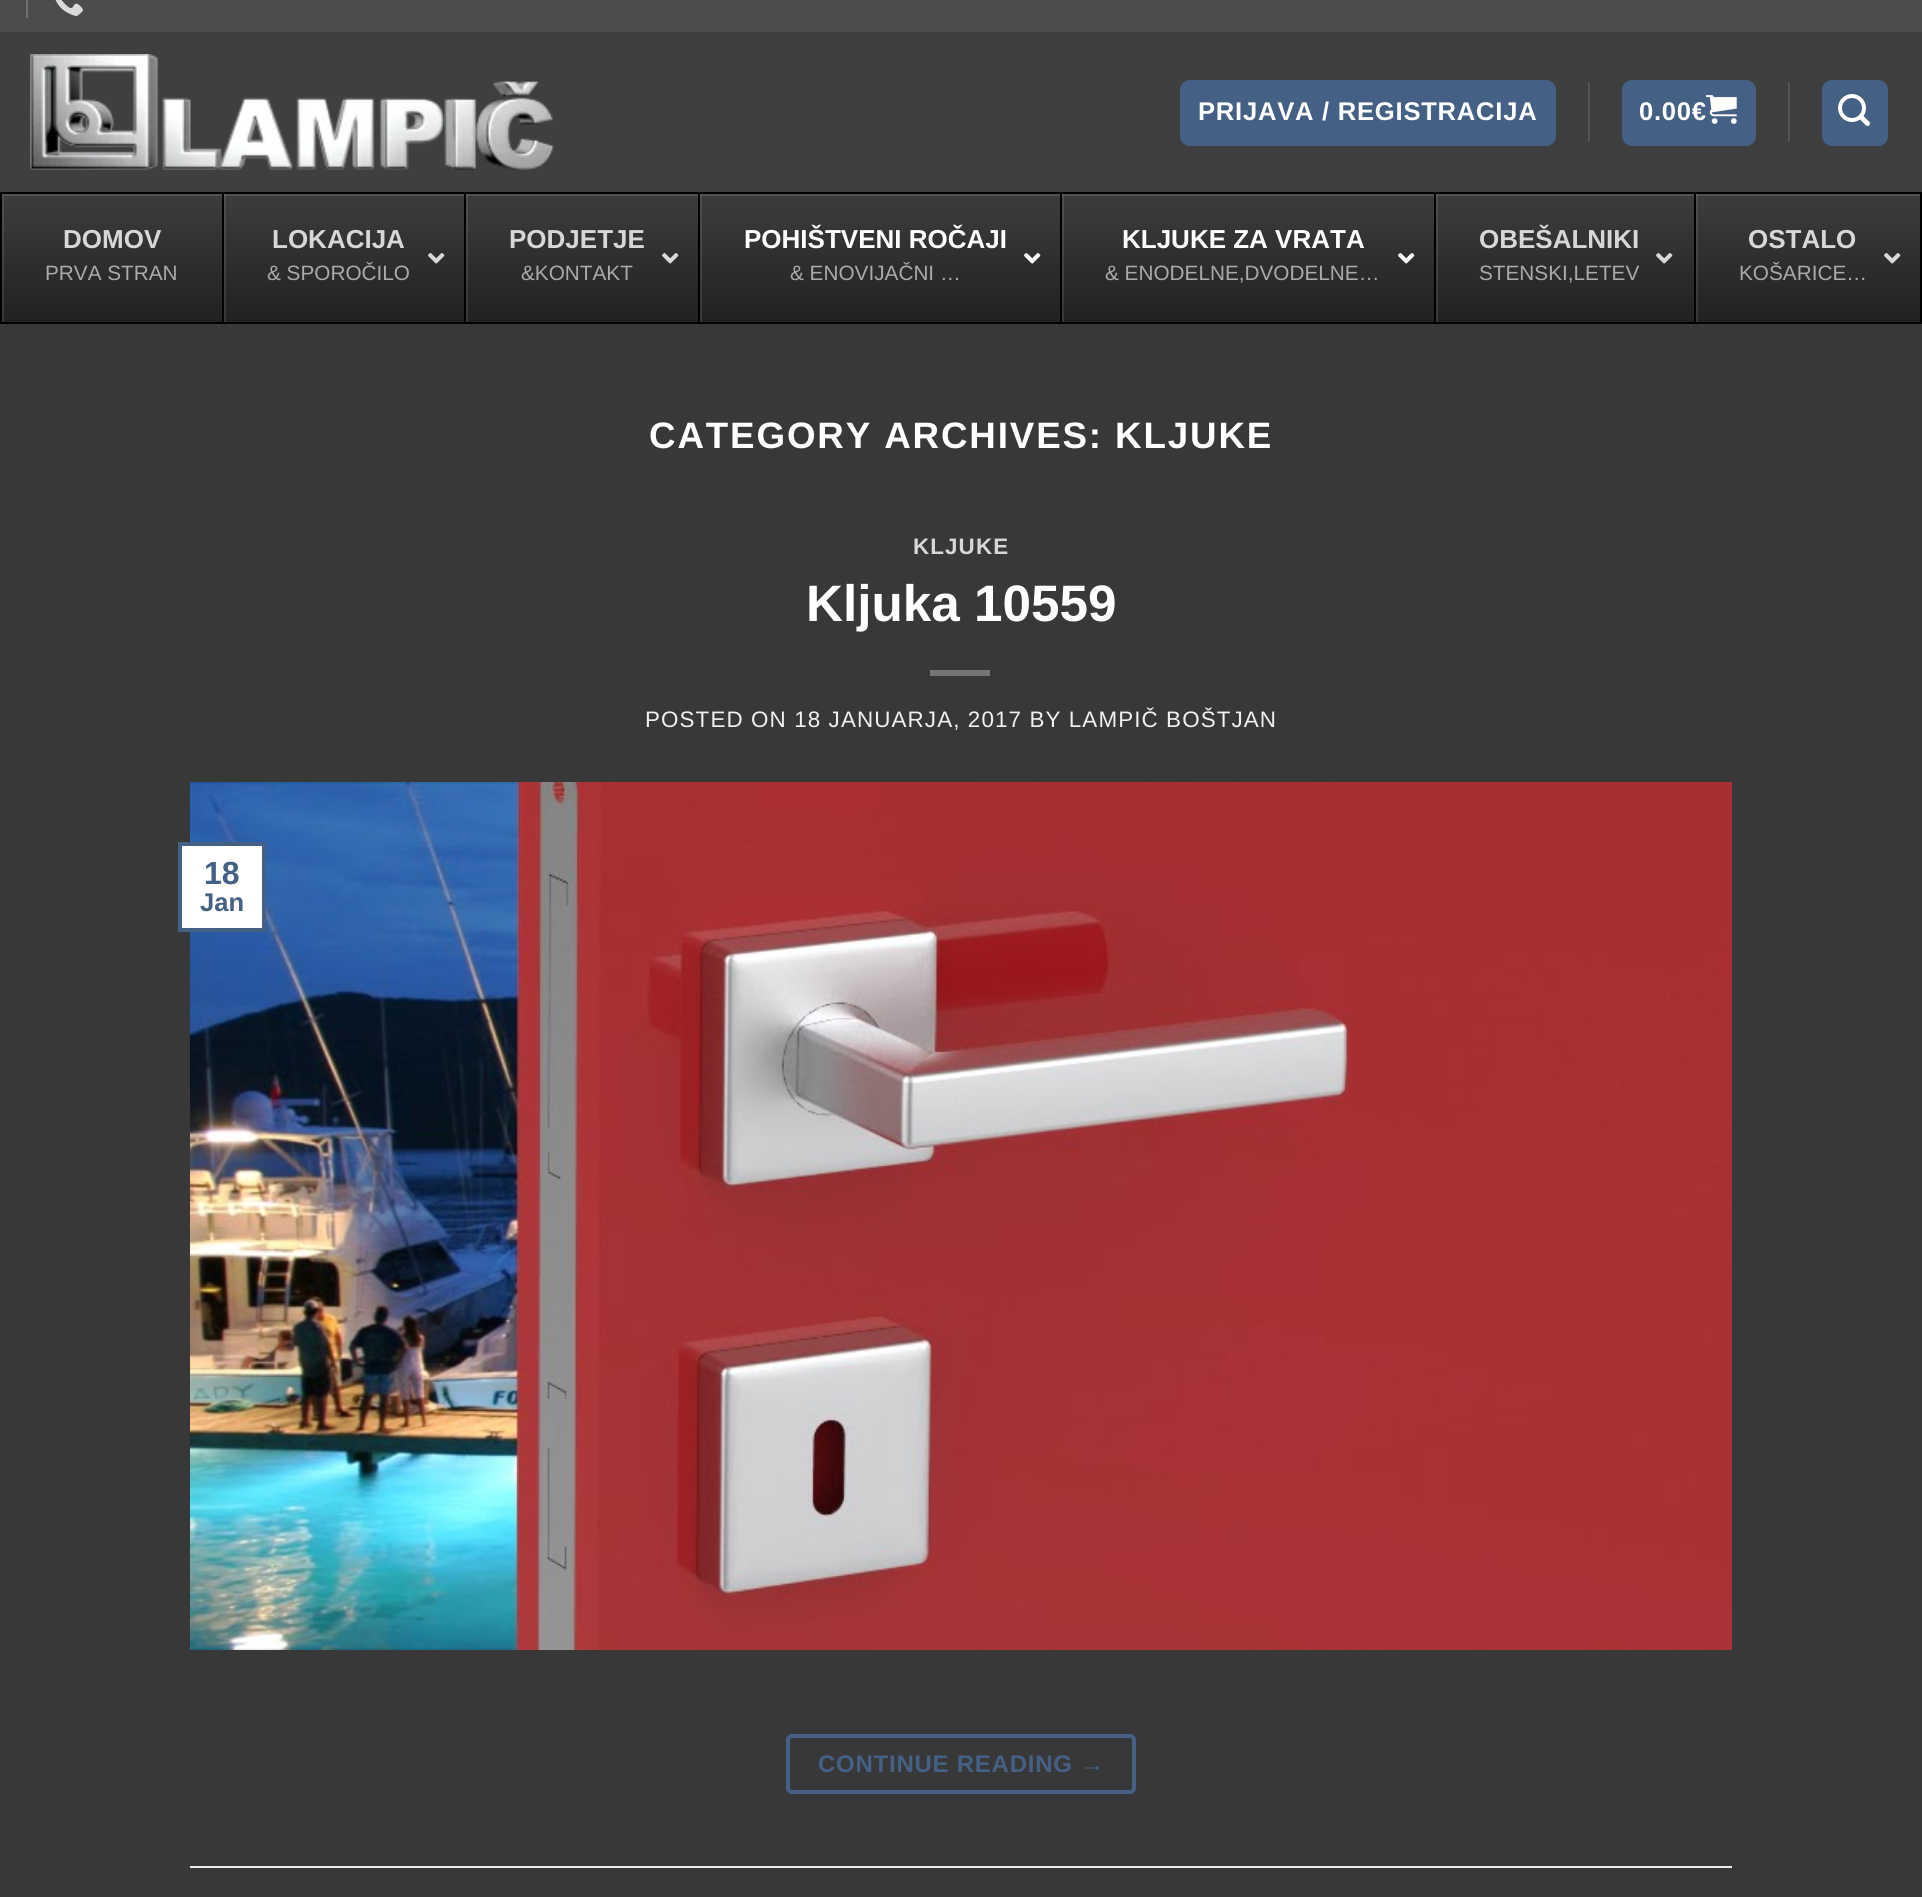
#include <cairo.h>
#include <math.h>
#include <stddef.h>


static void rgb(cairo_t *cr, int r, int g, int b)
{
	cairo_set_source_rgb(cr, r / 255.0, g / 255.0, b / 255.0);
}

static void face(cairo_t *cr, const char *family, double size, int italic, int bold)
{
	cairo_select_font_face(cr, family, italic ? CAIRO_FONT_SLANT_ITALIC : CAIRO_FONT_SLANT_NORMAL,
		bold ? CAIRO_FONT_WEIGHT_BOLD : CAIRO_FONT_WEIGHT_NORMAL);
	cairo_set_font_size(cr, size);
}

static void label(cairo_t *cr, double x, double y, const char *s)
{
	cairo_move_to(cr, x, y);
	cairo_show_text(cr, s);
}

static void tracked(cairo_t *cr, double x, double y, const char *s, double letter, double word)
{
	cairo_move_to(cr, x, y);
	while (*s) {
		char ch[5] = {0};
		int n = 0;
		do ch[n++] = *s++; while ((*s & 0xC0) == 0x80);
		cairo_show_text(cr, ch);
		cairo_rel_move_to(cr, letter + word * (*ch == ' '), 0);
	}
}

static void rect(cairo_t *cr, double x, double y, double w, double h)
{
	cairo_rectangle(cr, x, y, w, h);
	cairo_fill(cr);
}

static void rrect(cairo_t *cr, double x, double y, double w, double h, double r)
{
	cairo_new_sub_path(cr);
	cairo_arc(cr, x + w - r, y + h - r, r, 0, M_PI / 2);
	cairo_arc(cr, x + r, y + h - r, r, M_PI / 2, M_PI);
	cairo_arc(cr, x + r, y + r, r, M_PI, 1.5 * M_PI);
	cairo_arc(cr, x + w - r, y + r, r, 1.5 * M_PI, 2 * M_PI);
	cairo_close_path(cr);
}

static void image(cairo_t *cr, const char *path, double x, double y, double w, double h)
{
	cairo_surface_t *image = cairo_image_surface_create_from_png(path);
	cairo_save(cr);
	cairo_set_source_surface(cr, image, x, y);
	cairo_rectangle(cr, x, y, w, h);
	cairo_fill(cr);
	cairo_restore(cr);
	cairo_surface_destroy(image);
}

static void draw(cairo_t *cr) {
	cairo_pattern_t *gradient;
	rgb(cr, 56, 56, 56);
	cairo_paint(cr);
	rgb(cr, 76, 76, 76);
	rect(cr, 0, 0, 1922, 32);
	rgb(cr, 112, 112, 112);
	rect(cr, 26, 0, 2, 18);
	image(cr, "image0.png", 55, 0, 28, 16);
	rgb(cr, 63, 63, 63);
	rect(cr, 0, 32, 1922, 160);
	image(cr, "image1.png", 30, 54, 524, 116);
	rgb(cr, 68, 96, 132);
	rrect(cr, 1180, 80, 376, 66, 10);
	cairo_fill(cr);
	face(cr, "Liberation Sans", 25.6, 0, 1);
	rgb(cr, 255, 255, 255);
	tracked(cr, 1198, 120, "PRIJAVA / REGISTRACIJA", 0.75, 0);
	rgb(cr, 82, 82, 82);
	rect(cr, 1588, 82, 2, 60);
	rgb(cr, 68, 96, 132);
	rrect(cr, 1622, 80, 134, 66, 10);
	cairo_fill(cr);
	rgb(cr, 255, 255, 255);
	tracked(cr, 1639, 120, "0.00€", 0.75, 0);
	image(cr, "image2.png", 1706, 95, 31, 29);
	rgb(cr, 82, 82, 82);
	rect(cr, 1788, 82, 2, 60);
	rgb(cr, 68, 96, 132);
	rrect(cr, 1822, 80, 66, 66, 10);
	cairo_fill(cr);
	image(cr, "image3.png", 1838, 94, 32, 32);
	gradient = cairo_pattern_create_linear(961, 194, 961, 322);
	cairo_pattern_add_color_stop_rgba(gradient, 0, 0.239, 0.239, 0.239, 1);
	cairo_pattern_add_color_stop_rgba(gradient, 1, 0.129, 0.129, 0.129, 1);
	cairo_set_source(cr, gradient);
	cairo_pattern_destroy(gradient);
	rect(cr, 2, 194, 1918, 128);
	cairo_save(cr);
	cairo_rectangle(cr, 2, 194, 1918, 128);
	cairo_clip(cr);
	cairo_set_source_rgba(cr, 1, 1, 1, 0.1);
	cairo_set_fill_rule(cr, CAIRO_FILL_RULE_EVEN_ODD);
	cairo_new_path(cr);
	cairo_move_to(cr, -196, -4);
	cairo_line_to(cr, 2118, -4);
	cairo_line_to(cr, 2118, 520);
	cairo_line_to(cr, -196, 520);
	cairo_close_path(cr);
	cairo_move_to(cr, 4, 196);
	cairo_line_to(cr, 1922, 196);
	cairo_line_to(cr, 1922, 324);
	cairo_line_to(cr, 4, 324);
	cairo_close_path(cr);
	cairo_fill(cr);
	cairo_restore(cr);
	cairo_rectangle(cr, 1, 193, 1920, 130);
	rgb(cr, 0, 0, 0);
	cairo_stroke(cr);
	face(cr, "Liberation Sans", 26, 0, 1);
	rgb(cr, 215, 215, 215);
	label(cr, 63, 248, "DOMOV");
	face(cr, "Liberation Sans", 20.75, 0, 0);
	rgb(cr, 170, 170, 170);
	label(cr, 45, 280, "PRVA STRAN");
	cairo_set_source_rgba(cr, 1, 1, 1, 0.1);
	rect(cr, 224, 194, 2, 128);
	rgb(cr, 0, 0, 0);
	rect(cr, 222, 194, 2, 128);
	face(cr, "Liberation Sans", 26, 0, 1);
	rgb(cr, 215, 215, 215);
	label(cr, 272, 248, "LOKACIJA");
	image(cr, "image4.png", 428, 253, 17, 11);
	face(cr, "Liberation Sans", 20.75, 0, 0);
	rgb(cr, 170, 170, 170);
	label(cr, 267, 280, "& SPOROČILO");
	cairo_set_source_rgba(cr, 1, 1, 1, 0.1);
	rect(cr, 466, 194, 2, 128);
	rgb(cr, 0, 0, 0);
	rect(cr, 464, 194, 2, 128);
	face(cr, "Liberation Sans", 26, 0, 1);
	rgb(cr, 215, 215, 215);
	label(cr, 509, 248, "PODJETJE");
	image(cr, "image4.png", 662, 253, 17, 11);
	face(cr, "Liberation Sans", 20.75, 0, 0);
	rgb(cr, 170, 170, 170);
	label(cr, 521, 280, "&KONTAKT");
	cairo_set_source_rgba(cr, 1, 1, 1, 0.1);
	rect(cr, 700, 194, 2, 128);
	rgb(cr, 0, 0, 0);
	rect(cr, 698, 194, 2, 128);
	face(cr, "Liberation Sans", 26, 0, 1);
	rgb(cr, 255, 255, 255);
	label(cr, 744, 248, "POHIŠTVENI ROČAJI");
	image(cr, "image5.png", 1024, 253, 17, 11);
	face(cr, "Liberation Sans", 20.75, 0, 0);
	rgb(cr, 170, 170, 170);
	label(cr, 790, 280, "& ENOVIJAČNI …");
	cairo_set_source_rgba(cr, 1, 1, 1, 0.1);
	rect(cr, 1062, 194, 2, 128);
	rgb(cr, 0, 0, 0);
	rect(cr, 1060, 194, 2, 128);
	face(cr, "Liberation Sans", 26, 0, 1);
	rgb(cr, 255, 255, 255);
	label(cr, 1122, 248, "KLJUKE ZA VRATA");
	image(cr, "image5.png", 1398, 253, 17, 11);
	face(cr, "Liberation Sans", 20.75, 0, 0);
	rgb(cr, 170, 170, 170);
	label(cr, 1105, 280, "& ENODELNE,DVODELNE…");
	cairo_set_source_rgba(cr, 1, 1, 1, 0.1);
	rect(cr, 1436, 194, 2, 128);
	rgb(cr, 0, 0, 0);
	rect(cr, 1434, 194, 2, 128);
	face(cr, "Liberation Sans", 26, 0, 1);
	rgb(cr, 215, 215, 215);
	label(cr, 1479, 248, "OBEŠALNIKI");
	image(cr, "image4.png", 1656, 253, 17, 11);
	face(cr, "Liberation Sans", 20.75, 0, 0);
	rgb(cr, 170, 170, 170);
	label(cr, 1479, 280, "STENSKI,LETEV");
	cairo_set_source_rgba(cr, 1, 1, 1, 0.1);
	rect(cr, 1696, 194, 2, 128);
	rgb(cr, 0, 0, 0);
	rect(cr, 1694, 194, 2, 128);
	face(cr, "Liberation Sans", 26, 0, 1);
	rgb(cr, 215, 215, 215);
	label(cr, 1748, 248, "OSTALO");
	image(cr, "image4.png", 1884, 253, 17, 11);
	face(cr, "Liberation Sans", 20.75, 0, 0);
	rgb(cr, 170, 170, 170);
	label(cr, 1739, 280, "KOŠARICE…");
	face(cr, "Liberation Sans", 36.75, 0, 1);
	rgb(cr, 255, 255, 255);
	tracked(cr, 649, 448, "CATEGORY ARCHIVES: KLJUKE", 1.85, 0);
	face(cr, "Liberation Sans", 22.4, 0, 1);
	rgb(cr, 215, 215, 215);
	tracked(cr, 913, 554, "KLJUKE", 1.1, 0);
	face(cr, "Liberation Sans", 51.25, 0, 1);
	rgb(cr, 255, 255, 255);
	label(cr, 806, 621, "Kljuka 10559");
	rgb(cr, 116, 116, 116);
	rect(cr, 930, 670, 60, 6);
	face(cr, "Liberation Sans", 22.4, 0, 0);
	rgb(cr, 241, 241, 241);
	tracked(cr, 645, 727, "POSTED ON 18 JANUARJA, 2017 BY LAMPIČ BOŠTJAN", 1.1, 0);
	image(cr, "image6.png", 190, 782, 1542, 868);
	rgb(cr, 255, 255, 255);
	cairo_rectangle(cr, 180, 844, 84, 86);
	cairo_fill_preserve(cr);
	rgb(cr, 68, 96, 132);
	cairo_set_line_width(cr, 4);
	cairo_stroke(cr);
	face(cr, "Liberation Sans", 32, 0, 1);
	label(cr, 204, 884, "18");
	face(cr, "Liberation Sans", 25.6, 0, 1);
	label(cr, 200, 911, "Jan");
	rrect(cr, 788, 1736, 346, 56, 4);
	cairo_stroke(cr);
	face(cr, "Liberation Sans", 24, 0, 1);
	tracked(cr, 818, 1772, "CONTINUE READING →", 0.75, 0);
	rgb(cr, 236, 236, 236);
	rect(cr, 190, 1866, 1542, 2);
}

int main(void) {
	cairo_surface_t *surface = cairo_image_surface_create(CAIRO_FORMAT_RGB24, 1922, 1897);
	cairo_t *cr = cairo_create(surface);
	cairo_font_options_t *options = cairo_font_options_create();
	cairo_font_options_set_hint_metrics(options, CAIRO_HINT_METRICS_OFF);
	cairo_font_options_set_hint_style(options, CAIRO_HINT_STYLE_NONE);
	cairo_set_font_options(cr, options);
	cairo_set_miter_limit(cr, 4);
	draw(cr);
	cairo_surface_write_to_png(surface, "render.png");
	cairo_font_options_destroy(options);
	cairo_destroy(cr);
	cairo_surface_destroy(surface);
	return 0;
}
